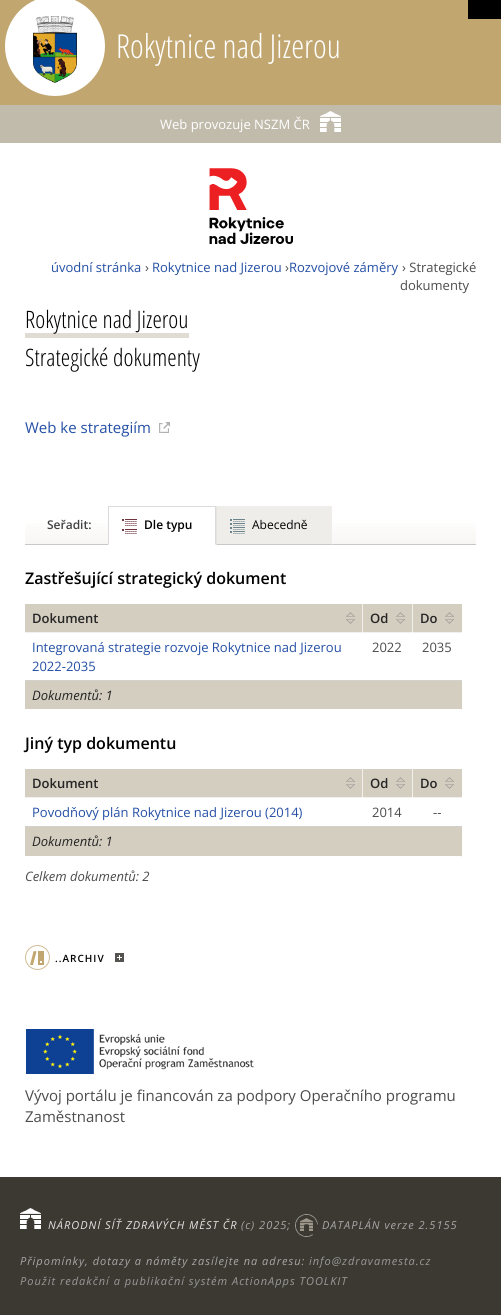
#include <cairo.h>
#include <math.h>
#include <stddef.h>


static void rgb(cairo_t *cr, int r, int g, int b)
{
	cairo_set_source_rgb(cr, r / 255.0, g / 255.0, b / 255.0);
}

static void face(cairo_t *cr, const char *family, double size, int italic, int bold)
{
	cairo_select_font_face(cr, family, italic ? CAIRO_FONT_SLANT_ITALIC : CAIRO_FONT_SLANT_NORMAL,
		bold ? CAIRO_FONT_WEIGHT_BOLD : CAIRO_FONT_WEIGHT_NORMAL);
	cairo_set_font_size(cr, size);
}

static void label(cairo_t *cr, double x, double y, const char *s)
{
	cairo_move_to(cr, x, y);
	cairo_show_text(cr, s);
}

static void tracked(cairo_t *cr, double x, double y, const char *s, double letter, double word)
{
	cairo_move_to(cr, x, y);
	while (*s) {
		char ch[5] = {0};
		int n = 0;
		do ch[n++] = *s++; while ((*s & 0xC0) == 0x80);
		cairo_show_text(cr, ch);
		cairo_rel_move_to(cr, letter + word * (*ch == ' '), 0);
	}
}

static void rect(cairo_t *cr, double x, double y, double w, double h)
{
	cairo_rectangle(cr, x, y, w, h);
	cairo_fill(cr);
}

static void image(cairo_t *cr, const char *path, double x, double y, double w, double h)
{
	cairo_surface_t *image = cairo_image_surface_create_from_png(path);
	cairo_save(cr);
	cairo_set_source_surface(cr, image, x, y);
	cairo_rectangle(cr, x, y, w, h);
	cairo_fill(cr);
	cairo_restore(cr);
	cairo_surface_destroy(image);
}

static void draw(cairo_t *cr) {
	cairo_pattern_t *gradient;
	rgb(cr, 255, 255, 255);
	cairo_paint(cr);
	rgb(cr, 193, 166, 112);
	rect(cr, 0, 0, 501, 105);
	rgb(cr, 0, 0, 0);
	rect(cr, 468, 0, 33, 19);
	rgb(cr, 255, 255, 255);
	cairo_arc(cr, 55, 46, 50, 0, 2 * M_PI);
	cairo_fill(cr);
	image(cr, "image0.png", 33, 16, 44, 67);
	face(cr, "Open Sans Condensed Light", 33, 0, 0);
	label(cr, 116, 58, "Rokytnice nad Jizerou");
	rgb(cr, 193, 187, 172);
	rect(cr, 0, 105, 501, 38);
	face(cr, "Open Sans", 13, 0, 0);
	rgb(cr, 255, 255, 255);
	label(cr, 160, 129, "Web provozuje NSZM ČR");
	image(cr, "image1.png", 320, 111, 21, 21);
	image(cr, "image2.png", 209, 168, 84, 76);
	rgb(cr, 36, 79, 165);
	label(cr, 51, 272, "úvodní stránka");
	rgb(cr, 76, 76, 76);
	label(cr, 145, 272, "›");
	rgb(cr, 36, 79, 165);
	label(cr, 152, 272, "Rokytnice nad Jizerou");
	rgb(cr, 76, 76, 76);
	label(cr, 285, 272, "›");
	rgb(cr, 36, 79, 165);
	label(cr, 289, 272, "Rozvojové záměry");
	rgb(cr, 76, 76, 76);
	label(cr, 402, 272, "› Strategické");
	label(cr, 400, 290, "dokumenty");
	rgb(cr, 225, 220, 211);
	rect(cr, 25, 333, 164, 5);
	face(cr, "Open Sans Condensed Light", 24, 0, 0);
	rgb(cr, 0, 0, 0);
	label(cr, 25, 328, "Rokytnice nad Jizerou");
	label(cr, 25, 366, "Strategické dokumenty");
	face(cr, "Open Sans", 15, 0, 0);
	rgb(cr, 36, 79, 165);
	label(cr, 25, 433, "Web ke strategiím");
	image(cr, "image3.png", 159, 422, 11, 11);
	gradient = cairo_pattern_create_linear(251, 505, 251, 544);
	cairo_pattern_add_color_stop_rgba(gradient, 0, 1, 1, 1, 1);
	cairo_pattern_add_color_stop_rgba(gradient, 0.3, 1, 1, 1, 1);
	cairo_pattern_add_color_stop_rgba(gradient, 1, 0.969, 0.965, 0.957, 1);
	cairo_set_source(cr, gradient);
	cairo_pattern_destroy(gradient);
	rect(cr, 25, 523, 451, 21);
	rgb(cr, 201, 200, 197);
	rect(cr, 25, 544, 451, 1);
	face(cr, "Open Sans SemiBold", 12, 0, 0);
	rgb(cr, 66, 66, 66);
	label(cr, 47, 529, "Seřadit:");
	rgb(cr, 255, 255, 255);
	rect(cr, 108, 523, 108, 22);
	rgb(cr, 220, 219, 219);
	rect(cr, 108, 506, 108, 1);
	cairo_new_path(cr);
	cairo_move_to(cr, 216, 506);
	cairo_line_to(cr, 216, 545);
	cairo_line_to(cr, 215, 544);
	cairo_line_to(cr, 215, 507);
	cairo_close_path(cr);
	cairo_fill(cr);
	cairo_new_path(cr);
	cairo_move_to(cr, 108, 545);
	cairo_line_to(cr, 108, 506);
	cairo_line_to(cr, 109, 507);
	cairo_line_to(cr, 109, 544);
	cairo_close_path(cr);
	cairo_fill(cr);
	image(cr, "image4.png", 122, 519, 15, 15);
	rgb(cr, 0, 0, 0);
	label(cr, 144, 529, "Dle typu");
	rgb(cr, 239, 237, 233);
	rect(cr, 216, 506, 116, 39);
	rgb(cr, 201, 200, 197);
	cairo_new_path(cr);
	cairo_move_to(cr, 332, 545);
	cairo_line_to(cr, 216, 545);
	cairo_line_to(cr, 217, 544);
	cairo_line_to(cr, 331, 544);
	cairo_close_path(cr);
	cairo_fill(cr);
	rgb(cr, 231, 228, 221);
	cairo_new_path(cr);
	cairo_move_to(cr, 216, 545);
	cairo_line_to(cr, 216, 506);
	cairo_line_to(cr, 217, 507);
	cairo_line_to(cr, 217, 544);
	cairo_close_path(cr);
	cairo_fill(cr);
	image(cr, "image5.png", 230, 519, 15, 15);
	face(cr, "Open Sans", 12, 0, 0);
	rgb(cr, 0, 0, 0);
	label(cr, 252, 529, "Abecedně");
	face(cr, "Open Sans SemiBold", 16, 0, 0);
	label(cr, 25, 584, "Zastřešující strategický dokument");
	rgb(cr, 212, 206, 193);
	rect(cr, 25, 604, 337, 28);
	rgb(cr, 242, 240, 236);
	rect(cr, 25, 632, 337, 1);
	image(cr, "image6.png", 346, 612, 9, 12);
	face(cr, "Open Sans SemiBold", 13, 0, 0);
	rgb(cr, 37, 37, 37);
	label(cr, 32, 623, "Dokument");
	rgb(cr, 212, 206, 193);
	rect(cr, 363, 604, 49, 28);
	rgb(cr, 242, 240, 236);
	rect(cr, 362, 604, 1, 29);
	rect(cr, 362, 632, 51, 1);
	rgb(cr, 254, 254, 253);
	rect(cr, 362, 632, 1, 1);
	rgb(cr, 242, 240, 236);
	rect(cr, 412, 604, 1, 29);
	image(cr, "image6.png", 396, 612, 9, 12);
	rgb(cr, 37, 37, 37);
	label(cr, 370, 623, "Od");
	rgb(cr, 212, 206, 193);
	rect(cr, 413, 604, 49, 28);
	rgb(cr, 242, 240, 236);
	rect(cr, 412, 632, 50, 1);
	rgb(cr, 254, 254, 253);
	rect(cr, 412, 632, 1, 1);
	image(cr, "image6.png", 445, 612, 9, 12);
	rgb(cr, 37, 37, 37);
	label(cr, 420, 623, "Do");
	face(cr, "Open Sans", 13, 0, 0);
	rgb(cr, 36, 79, 165);
	label(cr, 32, 652, "Integrovaná strategie rozvoje Rokytnice nad Jizerou");
	label(cr, 32, 671, "2022-2035");
	rgb(cr, 76, 76, 76);
	label(cr, 372, 652, "2022");
	rgb(cr, 212, 206, 193);
	rect(cr, 461, 680, 1, 30);
	rgb(cr, 211, 209, 204);
	rect(cr, 25, 680, 437, 1);
	rgb(cr, 76, 76, 76);
	label(cr, 422, 652, "2035");
	rgb(cr, 212, 206, 193);
	rect(cr, 25, 681, 436, 28);
	rgb(cr, 242, 240, 236);
	rect(cr, 461, 709, 1, 1);
	face(cr, "Open Sans", 13, 1, 0);
	rgb(cr, 37, 37, 37);
	label(cr, 32, 700, "Dokumentů: 1");
	face(cr, "Open Sans SemiBold", 16, 0, 0);
	rgb(cr, 0, 0, 0);
	label(cr, 25, 749, "Jiný typ dokumentu");
	rgb(cr, 212, 206, 193);
	rect(cr, 25, 769, 337, 28);
	rgb(cr, 242, 240, 236);
	rect(cr, 25, 797, 337, 1);
	image(cr, "image6.png", 346, 777, 9, 12);
	face(cr, "Open Sans SemiBold", 13, 0, 0);
	rgb(cr, 37, 37, 37);
	label(cr, 32, 788, "Dokument");
	rgb(cr, 212, 206, 193);
	rect(cr, 363, 769, 49, 28);
	rgb(cr, 242, 240, 236);
	rect(cr, 362, 769, 1, 29);
	rect(cr, 362, 797, 51, 1);
	rgb(cr, 254, 254, 253);
	rect(cr, 362, 797, 1, 1);
	rgb(cr, 242, 240, 236);
	rect(cr, 412, 769, 1, 29);
	image(cr, "image6.png", 396, 777, 9, 12);
	rgb(cr, 37, 37, 37);
	label(cr, 370, 788, "Od");
	rgb(cr, 212, 206, 193);
	rect(cr, 413, 769, 49, 28);
	rgb(cr, 242, 240, 236);
	rect(cr, 412, 797, 50, 1);
	rgb(cr, 254, 254, 253);
	rect(cr, 412, 797, 1, 1);
	image(cr, "image6.png", 445, 777, 9, 12);
	rgb(cr, 37, 37, 37);
	label(cr, 420, 788, "Do");
	face(cr, "Open Sans", 13, 0, 0);
	rgb(cr, 36, 79, 165);
	label(cr, 32, 817, "Povodňový plán Rokytnice nad Jizerou (2014)");
	rgb(cr, 76, 76, 76);
	label(cr, 372, 817, "2014");
	rgb(cr, 212, 206, 193);
	rect(cr, 461, 826, 1, 31);
	rgb(cr, 211, 209, 204);
	rect(cr, 25, 826, 437, 1);
	rgb(cr, 76, 76, 76);
	label(cr, 433, 817, "--");
	rgb(cr, 212, 206, 193);
	rect(cr, 25, 827, 436, 29);
	rgb(cr, 242, 240, 236);
	rect(cr, 461, 856, 1, 1);
	face(cr, "Open Sans", 13, 1, 0);
	rgb(cr, 37, 37, 37);
	label(cr, 32, 846, "Dokumentů: 1");
	rgb(cr, 76, 76, 76);
	label(cr, 25, 881, "Celkem dokumentů: 2");
	image(cr, "image7.png", 30, 951, 14, 14);
	cairo_arc(cr, 37.5, 957.5, 12, 0, 2 * M_PI);
	rgb(cr, 209, 188, 148);
	cairo_set_line_width(cr, 1);
	cairo_stroke(cr);
	face(cr, "Open Sans SemiBold", 10, 0, 0);
	rgb(cr, 0, 0, 0);
	tracked(cr, 55, 962, "..ARCHIV", 1, 0);
	image(cr, "image8.png", 115, 953, 9, 9);
	image(cr, "image9.png", 26, 1029, 228, 46);
	face(cr, "Open Sans", 15, 0, 0);
	rgb(cr, 76, 76, 76);
	label(cr, 25, 1101, "Vývoj portálu je financován za podpory Operačního programu");
	label(cr, 25, 1122, "Zaměstnanost");
	rgb(cr, 60, 57, 51);
	rect(cr, 0, 1177, 501, 138);
	image(cr, "image10.png", 20, 1208, 21, 21);
	face(cr, "Open Sans", 11, 1, 0);
	rgb(cr, 228, 227, 226);
	tracked(cr, 48, 1229, "NÁRODNÍ SÍŤ ZDRAVÝCH MĚST ČR", 1, 0);
	rgb(cr, 167, 167, 167);
	tracked(cr, 241, 1229, "(c) 2025;", 1, 0);
	image(cr, "image11.png", 295, 1214, 23, 23);
	tracked(cr, 322, 1229, "DATAPLÁN verze 2.5155", 1, 0);
	tracked(cr, 20, 1265, "Připomínky, dotazy a náměty zasílejte na adresu:", 1, 0);
	rgb(cr, 153, 153, 153);
	tracked(cr, 309, 1265, "info@zdravamesta.cz", 1, 0);
	tracked(cr, 20, 1285, "Použit redakční a publikační systém ActionApps TOOLKIT", 1, 0);
}

int main(void) {
	cairo_surface_t *surface = cairo_image_surface_create(CAIRO_FORMAT_RGB24, 501, 1315);
	cairo_t *cr = cairo_create(surface);
	cairo_font_options_t *options = cairo_font_options_create();
	cairo_font_options_set_hint_metrics(options, CAIRO_HINT_METRICS_OFF);
	cairo_font_options_set_hint_style(options, CAIRO_HINT_STYLE_NONE);
	cairo_set_font_options(cr, options);
	cairo_set_miter_limit(cr, 4);
	draw(cr);
	cairo_surface_write_to_png(surface, "render.png");
	cairo_font_options_destroy(options);
	cairo_destroy(cr);
	cairo_surface_destroy(surface);
	return 0;
}
